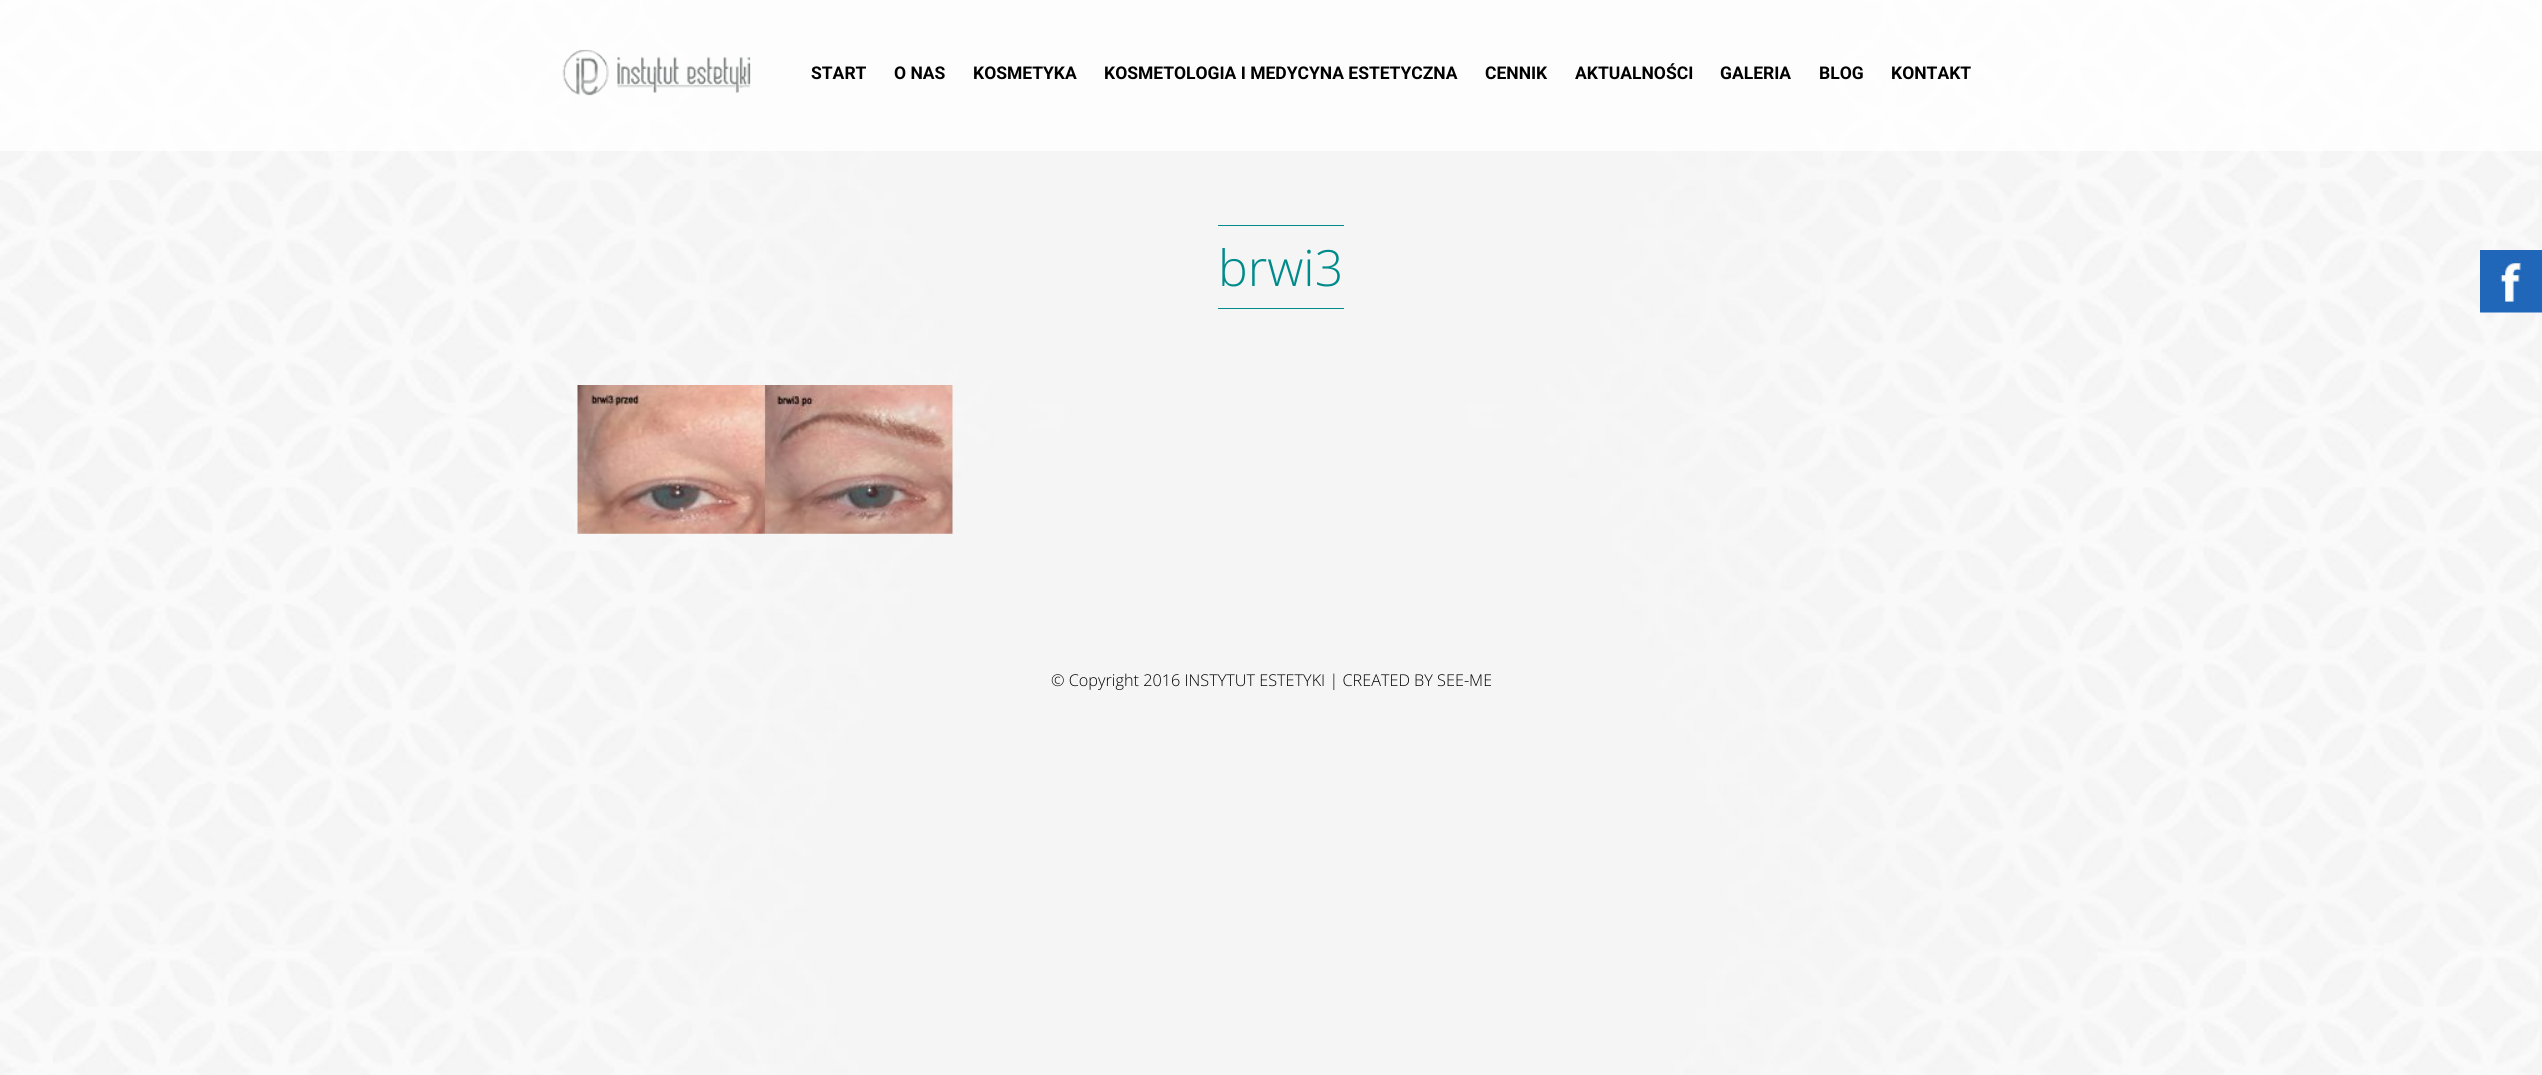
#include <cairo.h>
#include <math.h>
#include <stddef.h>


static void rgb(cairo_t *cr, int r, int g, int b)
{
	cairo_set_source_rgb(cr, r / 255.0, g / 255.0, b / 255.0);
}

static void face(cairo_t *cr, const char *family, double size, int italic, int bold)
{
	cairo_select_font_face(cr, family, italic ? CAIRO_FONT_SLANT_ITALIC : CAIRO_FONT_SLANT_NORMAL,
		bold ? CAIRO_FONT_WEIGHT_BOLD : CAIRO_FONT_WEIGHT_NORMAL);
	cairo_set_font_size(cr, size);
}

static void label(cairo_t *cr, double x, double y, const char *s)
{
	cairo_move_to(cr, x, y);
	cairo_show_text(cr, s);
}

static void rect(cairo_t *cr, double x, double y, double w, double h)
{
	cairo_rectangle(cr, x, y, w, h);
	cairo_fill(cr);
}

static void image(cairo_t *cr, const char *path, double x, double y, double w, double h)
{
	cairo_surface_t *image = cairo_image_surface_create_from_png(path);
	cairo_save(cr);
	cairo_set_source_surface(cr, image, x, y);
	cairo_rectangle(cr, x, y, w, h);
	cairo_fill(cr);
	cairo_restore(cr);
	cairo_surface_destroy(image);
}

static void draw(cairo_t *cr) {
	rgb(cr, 255, 255, 255);
	cairo_paint(cr);
	image(cr, "image0.png", 0, 0, 2542, 1075);
	cairo_set_source_rgba(cr, 1, 1, 1, 0.8);
	rect(cr, 0, 0, 2542, 151);
	image(cr, "image1.png", 562, 49, 189, 47);
	face(cr, "Roboto", 17.5, 0, 1);
	rgb(cr, 0, 0, 0);
	label(cr, 811, 79, "START");
	label(cr, 894, 79, "O NAS");
	label(cr, 973, 79, "KOSMETYKA");
	label(cr, 1104, 79, "KOSMETOLOGIA I MEDYCYNA ESTETYCZNA");
	label(cr, 1485, 79, "CENNIK");
	label(cr, 1575, 79, "AKTUALNOŚCI");
	label(cr, 1720, 79, "GALERIA");
	label(cr, 1819, 79, "BLOG");
	label(cr, 1891, 79, "KONTAKT");
	image(cr, "image2.png", 2480, 250, 62, 63);
	face(cr, "Open Sans Light", 50, 0, 0);
	rgb(cr, 0, 139, 139);
	label(cr, 1218, 286, "brwi3");
	rect(cr, 1218, 225, 126, 1);
	rect(cr, 1218, 308, 126, 1);
	image(cr, "image3.png", 577, 385, 376, 149);
	face(cr, "Open Sans Light", 16.25, 0, 0);
	rgb(cr, 0, 0, 0);
	label(cr, 1051, 686, "© Copyright 2016 INSTYTUT ESTETYKI | CREATED BY SEE-ME");
}

int main(void) {
	cairo_surface_t *surface = cairo_image_surface_create(CAIRO_FORMAT_RGB24, 2542, 1075);
	cairo_t *cr = cairo_create(surface);
	cairo_font_options_t *options = cairo_font_options_create();
	cairo_font_options_set_hint_metrics(options, CAIRO_HINT_METRICS_OFF);
	cairo_font_options_set_hint_style(options, CAIRO_HINT_STYLE_NONE);
	cairo_set_font_options(cr, options);
	cairo_set_miter_limit(cr, 4);
	draw(cr);
	cairo_surface_write_to_png(surface, "render.png");
	cairo_font_options_destroy(options);
	cairo_destroy(cr);
	cairo_surface_destroy(surface);
	return 0;
}
